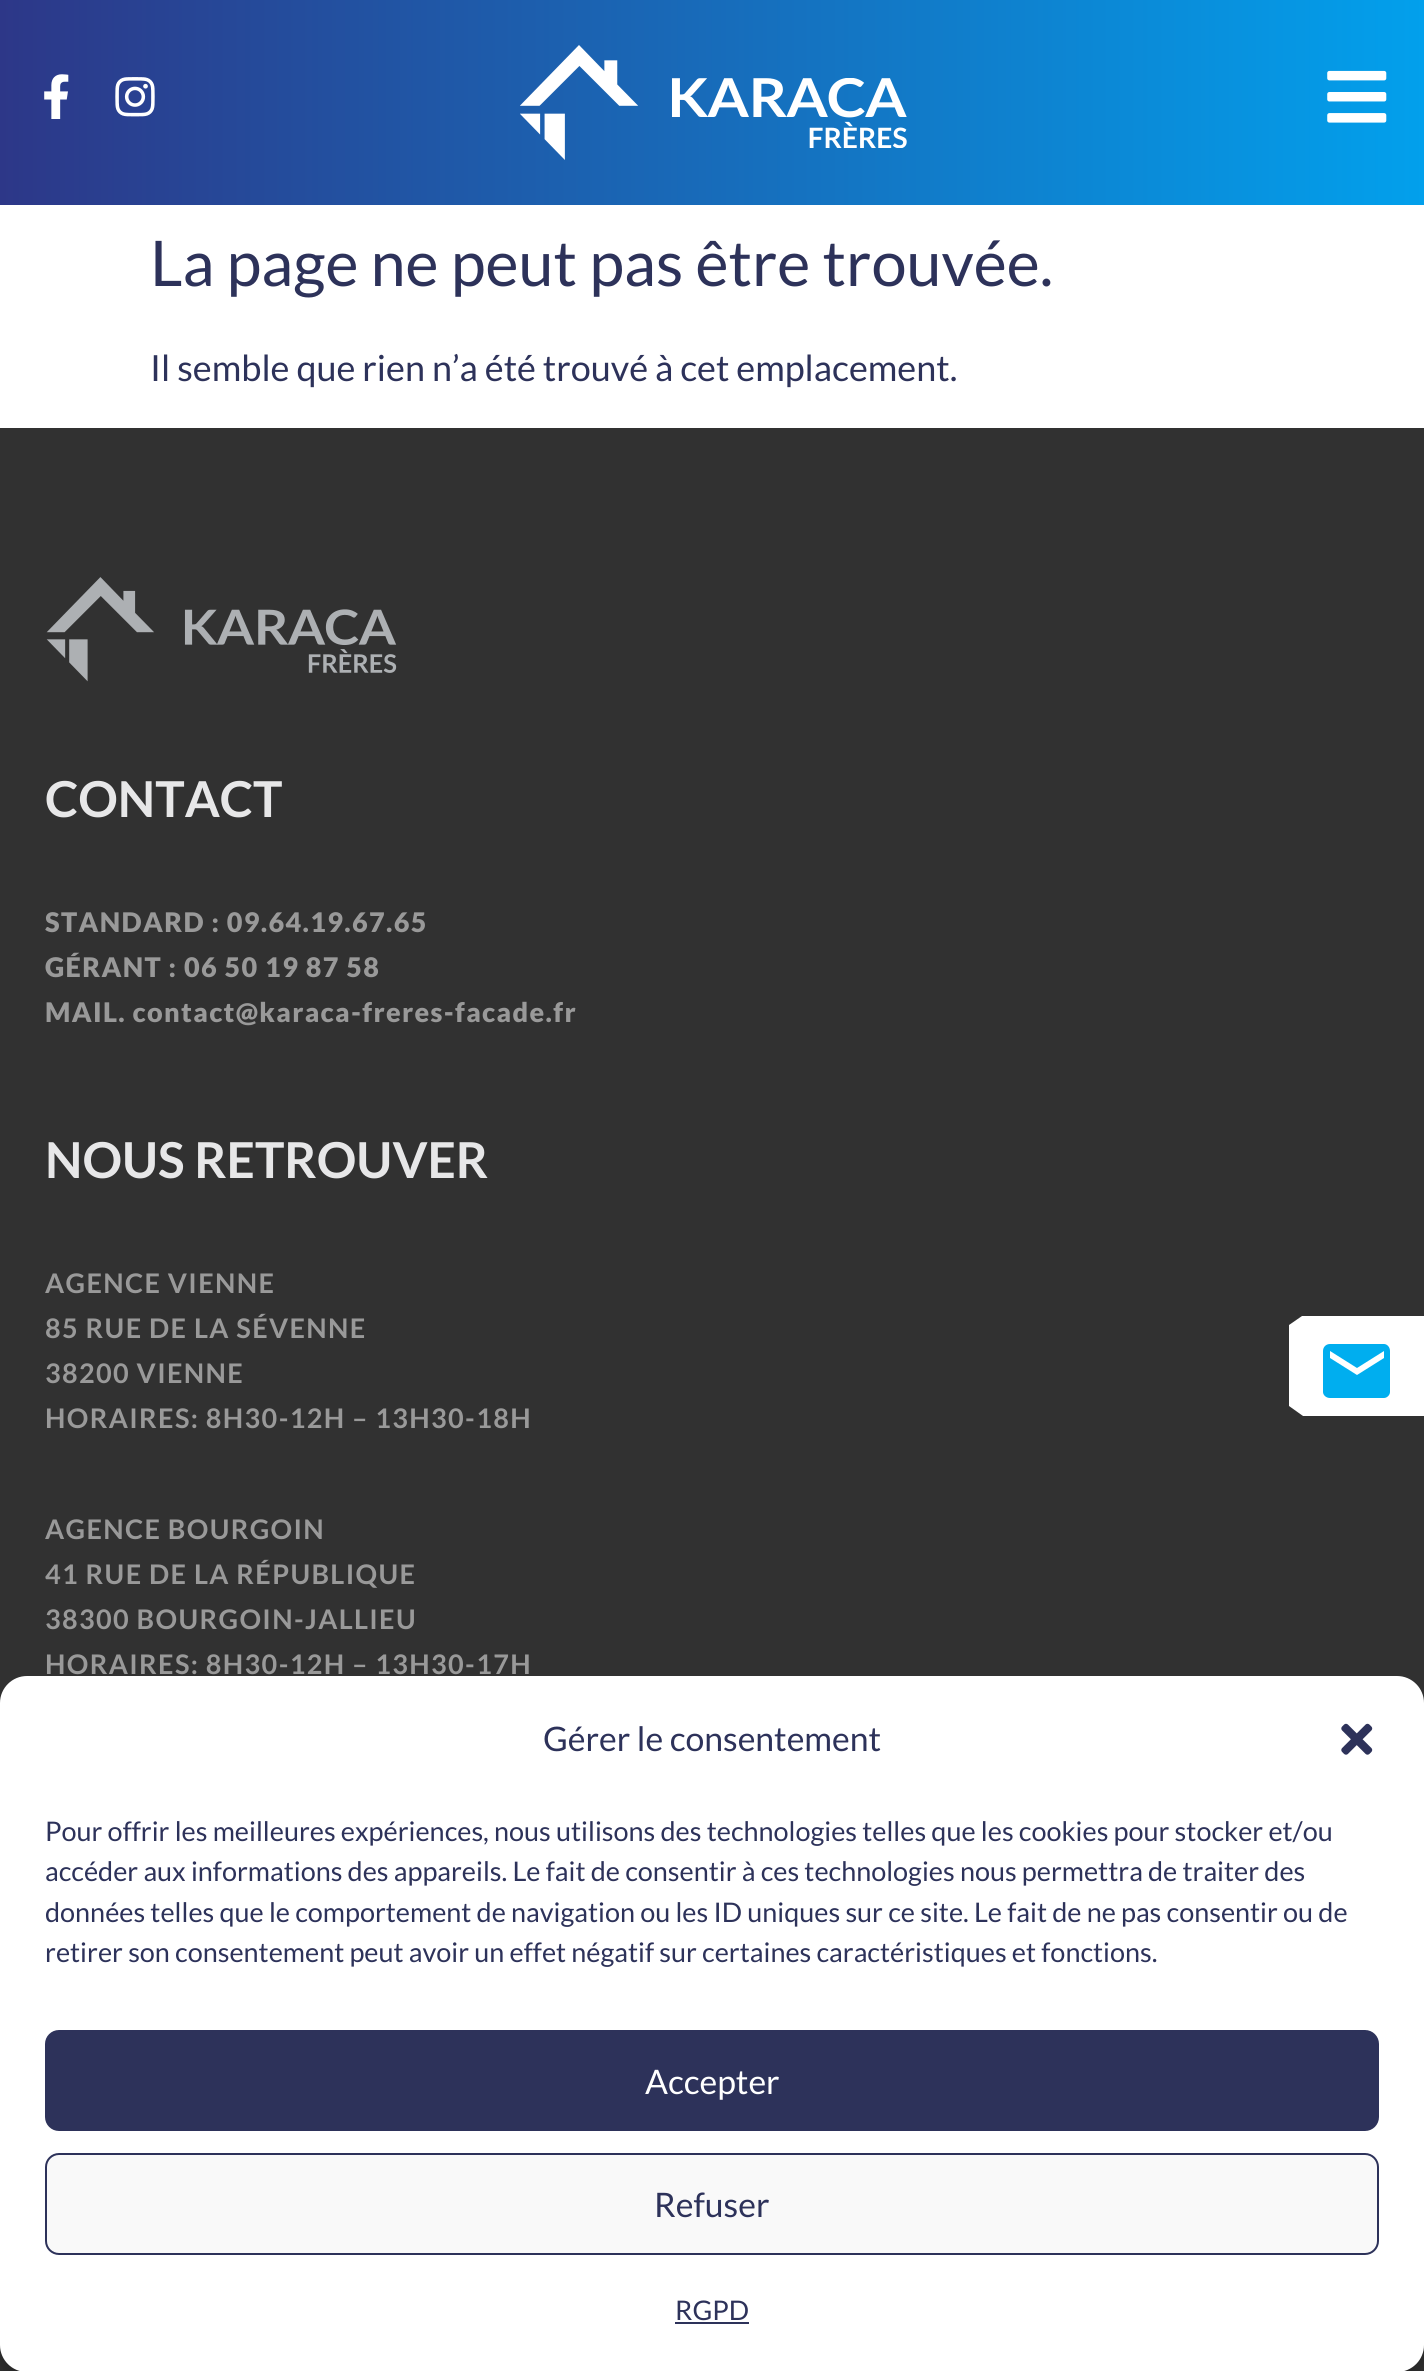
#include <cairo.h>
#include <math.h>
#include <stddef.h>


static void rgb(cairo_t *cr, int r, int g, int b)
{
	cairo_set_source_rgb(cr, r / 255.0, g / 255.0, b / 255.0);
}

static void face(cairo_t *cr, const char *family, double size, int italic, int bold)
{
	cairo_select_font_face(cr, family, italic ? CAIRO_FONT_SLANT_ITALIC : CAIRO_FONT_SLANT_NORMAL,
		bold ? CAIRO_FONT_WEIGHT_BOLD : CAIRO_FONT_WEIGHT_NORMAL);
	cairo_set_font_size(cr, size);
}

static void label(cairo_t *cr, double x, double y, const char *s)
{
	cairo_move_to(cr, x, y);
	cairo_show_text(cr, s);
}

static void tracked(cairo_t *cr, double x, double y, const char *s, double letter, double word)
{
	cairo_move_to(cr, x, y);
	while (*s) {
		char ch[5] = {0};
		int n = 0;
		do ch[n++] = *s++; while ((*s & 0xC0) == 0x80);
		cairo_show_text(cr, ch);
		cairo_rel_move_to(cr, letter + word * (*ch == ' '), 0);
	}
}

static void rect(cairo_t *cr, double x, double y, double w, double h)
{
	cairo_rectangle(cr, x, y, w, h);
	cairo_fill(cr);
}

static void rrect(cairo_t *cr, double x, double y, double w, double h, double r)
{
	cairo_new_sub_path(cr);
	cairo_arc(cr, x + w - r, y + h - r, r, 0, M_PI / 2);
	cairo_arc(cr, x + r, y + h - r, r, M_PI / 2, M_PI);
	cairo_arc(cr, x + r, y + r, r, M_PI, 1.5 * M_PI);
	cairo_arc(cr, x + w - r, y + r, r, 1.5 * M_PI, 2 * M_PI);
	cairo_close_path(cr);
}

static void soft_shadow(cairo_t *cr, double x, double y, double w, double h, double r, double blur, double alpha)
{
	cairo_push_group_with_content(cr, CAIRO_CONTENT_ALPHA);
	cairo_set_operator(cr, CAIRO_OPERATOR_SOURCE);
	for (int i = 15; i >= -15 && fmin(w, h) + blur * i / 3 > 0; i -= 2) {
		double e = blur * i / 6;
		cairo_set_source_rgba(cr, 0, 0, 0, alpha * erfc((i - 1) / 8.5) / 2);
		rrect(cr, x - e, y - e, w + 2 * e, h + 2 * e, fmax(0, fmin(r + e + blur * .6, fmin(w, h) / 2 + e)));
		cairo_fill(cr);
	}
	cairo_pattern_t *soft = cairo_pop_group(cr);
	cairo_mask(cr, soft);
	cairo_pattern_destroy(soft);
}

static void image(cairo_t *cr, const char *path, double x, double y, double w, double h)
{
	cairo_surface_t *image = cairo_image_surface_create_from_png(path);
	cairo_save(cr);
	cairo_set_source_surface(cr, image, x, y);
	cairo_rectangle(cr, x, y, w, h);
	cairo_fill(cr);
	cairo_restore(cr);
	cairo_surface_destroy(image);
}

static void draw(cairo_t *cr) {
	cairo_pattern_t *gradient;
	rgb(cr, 255, 255, 255);
	cairo_paint(cr);
	gradient = cairo_pattern_create_linear(1424, 102, 0, 102);
	cairo_pattern_add_color_stop_rgba(gradient, 0, 0.008, 0.627, 0.925, 1);
	cairo_pattern_add_color_stop_rgba(gradient, 1, 0.176, 0.216, 0.533, 1);
	cairo_set_source(cr, gradient);
	cairo_pattern_destroy(gradient);
	rect(cr, 0, 0, 1424, 205);
	image(cr, "image0.png", 44, 74, 25, 45);
	image(cr, "image1.png", 115, 77, 40, 40);
	image(cr, "image2.png", 520, 45, 387, 115);
	image(cr, "image3.png", 1327, 70, 60, 53);
	face(cr, "Lato", 63, 0, 0);
	rgb(cr, 45, 50, 90);
	label(cr, 150, 286, "La page ne peut pas être trouvée.");
	face(cr, "Lato", 36, 0, 0);
	label(cr, 150, 381, "Il semble que rien n’a été trouvé à cet emplacement.");
	rgb(cr, 49, 49, 49);
	rect(cr, 0, 428, 1424, 1943);
	image(cr, "image4.png", 46, 577, 351, 105);
	face(cr, "Lato", 49.5, 0, 1);
	rgb(cr, 231, 231, 232);
	label(cr, 45, 817, "CONTACT");
	face(cr, "Lato Black", 27, 0, 0);
	rgb(cr, 153, 153, 153);
	tracked(cr, 45, 932, "STANDARD : 09.64.19.67.65", 1.35, 0);
	tracked(cr, 45, 977, "GÉRANT : 06 50 19 87 58", 1.35, 0);
	tracked(cr, 45, 1022, "MAIL. contact@karaca-freres-facade.fr", 1.35, 0);
	face(cr, "Lato", 49.5, 0, 1);
	rgb(cr, 231, 231, 232);
	label(cr, 45, 1178, "NOUS RETROUVER");
	face(cr, "Lato", 27, 0, 1);
	rgb(cr, 153, 153, 153);
	tracked(cr, 45, 1293, "AGENCE VIENNE", 1.35, 0);
	tracked(cr, 45, 1338, "85 RUE DE LA SÉVENNE", 1.35, 0);
	tracked(cr, 45, 1383, "38200 VIENNE", 1.35, 0);
	tracked(cr, 45, 1428, "HORAIRES: 8H30-12H – 13H30-18H", 1.35, 0);
	tracked(cr, 45, 1539, "AGENCE BOURGOIN", 1.35, 0);
	tracked(cr, 45, 1584, "41 RUE DE LA RÉPUBLIQUE", 1.35, 0);
	tracked(cr, 45, 1629, "38300 BOURGOIN-JALLIEU", 1.35, 0);
	tracked(cr, 45, 1674, "HORAIRES: 8H30-12H – 13H30-17H", 1.35, 0);
	rgb(cr, 255, 255, 255);
	cairo_new_path(cr);
	cairo_move_to(cr, 1424, 1416);
	cairo_line_to(cr, 1303, 1416);
	cairo_line_to(cr, 1289, 1406);
	cairo_line_to(cr, 1289, 1325);
	cairo_line_to(cr, 1302, 1316);
	cairo_line_to(cr, 1424, 1316);
	cairo_close_path(cr);
	cairo_fill(cr);
	rgb(cr, 0, 174, 239);
	cairo_new_path(cr);
	cairo_move_to(cr, 1384, 1344);
	cairo_line_to(cr, 1330, 1344);
	cairo_curve_to(cr, 1326, 1344, 1323, 1347, 1323, 1351);
	cairo_line_to(cr, 1323, 1392);
	cairo_curve_to(cr, 1323, 1395, 1326, 1398, 1330, 1398);
	cairo_line_to(cr, 1384, 1398);
	cairo_curve_to(cr, 1387, 1398, 1390, 1395, 1390, 1392);
	cairo_line_to(cr, 1390, 1351);
	cairo_curve_to(cr, 1390, 1347, 1387, 1344, 1384, 1344);
	cairo_close_path(cr);
	cairo_move_to(cr, 1384, 1358);
	cairo_line_to(cr, 1357, 1375);
	cairo_line_to(cr, 1330, 1358);
	cairo_line_to(cr, 1330, 1351);
	cairo_line_to(cr, 1357, 1368);
	cairo_line_to(cr, 1384, 1351);
	cairo_close_path(cr);
	cairo_fill(cr);
	rgb(cr, 0, 0, 0);
	soft_shadow(cr, 0, 1690, 1424, 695, 27, 7, 0.23);
	rgb(cr, 255, 255, 255);
	rrect(cr, 0, 1676, 1424, 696, 27);
	cairo_fill(cr);
	face(cr, "Lato", 33.75, 0, 0);
	rgb(cr, 45, 50, 90);
	label(cr, 543, 1751, "Gérer le consentement");
	image(cr, "image5.png", 1341, 1723, 32, 32);
	face(cr, "Lato", 27, 0, 0);
	label(cr, 45, 1841, "Pour offrir les meilleures expériences, nous utilisons des technologies telles que les cookies pour stocker et/ou");
	label(cr, 45, 1881, "accéder aux informations des appareils. Le fait de consentir à ces technologies nous permettra de traiter des");
	label(cr, 45, 1922, "données telles que le comportement de navigation ou les ID uniques sur ce site. Le fait de ne pas consentir ou de");
	label(cr, 45, 1962, "retirer son consentement peut avoir un effet négatif sur certaines caractéristiques et fonctions.");
	rrect(cr, 46, 2031, 1332, 99, 13);
	cairo_fill_preserve(cr);
	cairo_stroke(cr);
	face(cr, "Lato", 33.75, 0, 0);
	rgb(cr, 255, 255, 255);
	label(cr, 645, 2094, "Accepter");
	rgb(cr, 249, 249, 249);
	rrect(cr, 46, 2154, 1332, 100, 13);
	cairo_fill_preserve(cr);
	rgb(cr, 45, 50, 90);
	cairo_stroke(cr);
	label(cr, 654, 2217, "Refuser");
	face(cr, "Lato", 27, 0, 0);
	label(cr, 675, 2320, "RGPD");
	rect(cr, 675, 2322, 74, 2);
}

int main(void) {
	cairo_surface_t *surface = cairo_image_surface_create(CAIRO_FORMAT_RGB24, 1424, 2371);
	cairo_t *cr = cairo_create(surface);
	cairo_font_options_t *options = cairo_font_options_create();
	cairo_font_options_set_hint_metrics(options, CAIRO_HINT_METRICS_OFF);
	cairo_font_options_set_hint_style(options, CAIRO_HINT_STYLE_NONE);
	cairo_set_font_options(cr, options);
	cairo_set_miter_limit(cr, 4);
	draw(cr);
	cairo_surface_write_to_png(surface, "render.png");
	cairo_font_options_destroy(options);
	cairo_destroy(cr);
	cairo_surface_destroy(surface);
	return 0;
}
